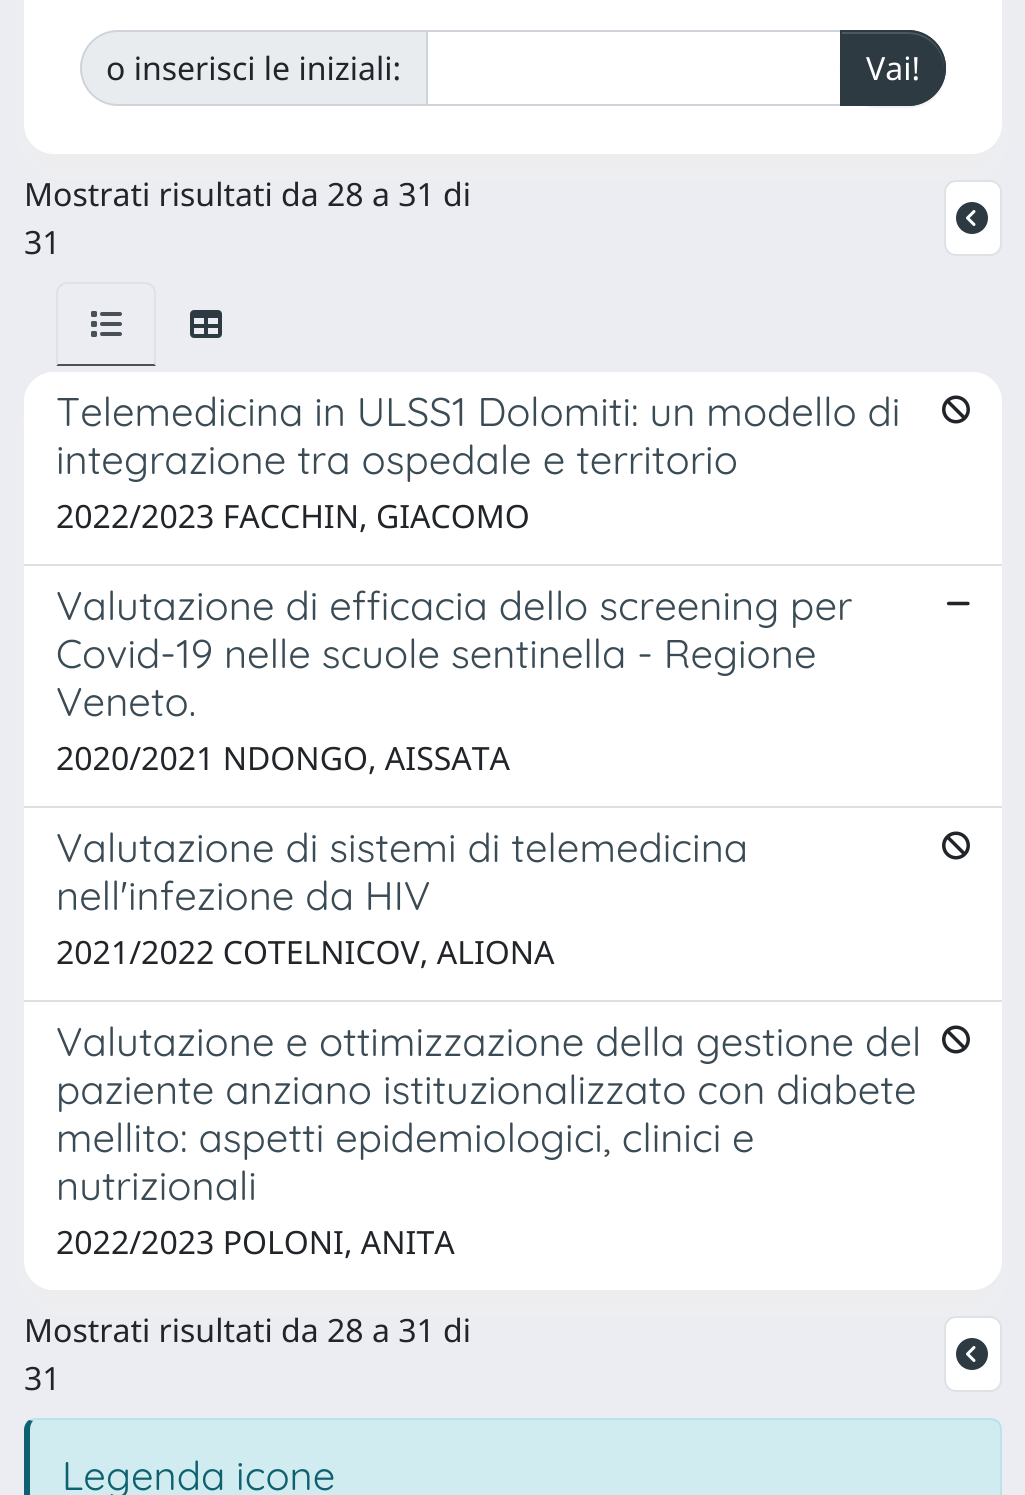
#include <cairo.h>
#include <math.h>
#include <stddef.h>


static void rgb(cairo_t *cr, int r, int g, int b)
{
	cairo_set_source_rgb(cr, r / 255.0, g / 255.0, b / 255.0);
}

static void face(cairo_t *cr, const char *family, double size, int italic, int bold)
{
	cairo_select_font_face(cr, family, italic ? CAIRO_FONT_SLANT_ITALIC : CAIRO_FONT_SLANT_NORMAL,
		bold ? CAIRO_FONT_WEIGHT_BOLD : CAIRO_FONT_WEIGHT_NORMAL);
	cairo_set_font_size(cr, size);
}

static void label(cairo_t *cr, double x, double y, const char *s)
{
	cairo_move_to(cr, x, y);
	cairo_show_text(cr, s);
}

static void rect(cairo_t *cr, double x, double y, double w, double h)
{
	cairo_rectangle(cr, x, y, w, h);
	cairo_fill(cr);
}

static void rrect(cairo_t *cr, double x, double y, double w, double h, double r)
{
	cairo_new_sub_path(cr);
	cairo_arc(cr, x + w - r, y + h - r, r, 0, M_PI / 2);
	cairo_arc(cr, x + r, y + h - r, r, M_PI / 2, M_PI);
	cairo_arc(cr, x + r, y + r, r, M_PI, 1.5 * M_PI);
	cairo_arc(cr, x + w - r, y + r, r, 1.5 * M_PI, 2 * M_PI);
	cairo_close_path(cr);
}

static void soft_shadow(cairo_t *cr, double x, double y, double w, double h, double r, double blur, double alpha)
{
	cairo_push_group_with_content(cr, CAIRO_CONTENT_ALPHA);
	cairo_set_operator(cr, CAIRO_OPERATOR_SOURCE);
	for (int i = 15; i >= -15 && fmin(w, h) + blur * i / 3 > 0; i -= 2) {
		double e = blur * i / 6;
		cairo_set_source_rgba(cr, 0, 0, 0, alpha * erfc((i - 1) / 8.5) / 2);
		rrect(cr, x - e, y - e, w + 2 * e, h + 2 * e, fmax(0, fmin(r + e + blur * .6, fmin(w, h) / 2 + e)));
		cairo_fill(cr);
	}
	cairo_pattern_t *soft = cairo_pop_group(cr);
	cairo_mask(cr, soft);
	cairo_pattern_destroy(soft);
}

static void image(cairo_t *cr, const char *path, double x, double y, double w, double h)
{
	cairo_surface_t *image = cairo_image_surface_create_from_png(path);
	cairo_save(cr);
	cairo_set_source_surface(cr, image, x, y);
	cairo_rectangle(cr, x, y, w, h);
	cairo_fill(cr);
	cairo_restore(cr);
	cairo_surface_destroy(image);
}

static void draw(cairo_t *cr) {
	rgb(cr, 236, 237, 242);
	cairo_paint(cr);
	rgb(cr, 238, 238, 238);
	soft_shadow(cr, 30, -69, 966, 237, 24, 15, 1);
	rgb(cr, 255, 255, 255);
	rrect(cr, 24, -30, 978, 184, 30);
	cairo_fill(cr);
	rgb(cr, 233, 236, 239);
	cairo_new_path(cr);
	cairo_move_to(cr, 118, 31);
	cairo_line_to(cr, 427, 31);
	cairo_line_to(cr, 427, 105);
	cairo_line_to(cr, 118, 105);
	cairo_curve_to(cr, 97.5, 105, 81, 88.5, 81, 68);
	cairo_curve_to(cr, 81, 47.5, 97.5, 31, 118, 31);
	cairo_close_path(cr);
	cairo_fill_preserve(cr);
	rgb(cr, 206, 212, 218);
	cairo_stroke(cr);
	face(cr, "Noto Sans", 32, 0, 0);
	rgb(cr, 33, 37, 41);
	label(cr, 106, 80, "o inserisci le iniziali:");
	cairo_rectangle(cr, 427, 31, 414, 74);
	rgb(cr, 206, 212, 218);
	cairo_stroke(cr);
	rgb(cr, 0, 0, 0);
	soft_shadow(cr, 840, 32, 106, 76, 38, 1, 0.07);
	rgb(cr, 45, 58, 66);
	cairo_new_path(cr);
	cairo_move_to(cr, 840, 30);
	cairo_line_to(cr, 908, 30);
	cairo_curve_to(cr, 929, 30, 946, 47, 946, 68);
	cairo_curve_to(cr, 946, 89, 929, 106, 908, 106);
	cairo_line_to(cr, 840, 106);
	cairo_close_path(cr);
	cairo_fill(cr);
	rgb(cr, 77, 88, 94);
	cairo_new_path(cr);
	cairo_move_to(cr, 842, 34);
	cairo_line_to(cr, 908, 34);
	cairo_curve_to(cr, 928, 34, 943, 49, 944, 69);
	cairo_line_to(cr, 944, 68);
	cairo_curve_to(cr, 944, 48, 928, 32, 908, 32);
	cairo_line_to(cr, 842, 32);
	cairo_close_path(cr);
	cairo_fill(cr);
	cairo_new_path(cr);
	cairo_move_to(cr, 841, 31);
	cairo_line_to(cr, 908, 31);
	cairo_curve_to(cr, 928.5, 31, 945, 47.5, 945, 68);
	cairo_curve_to(cr, 945, 88.5, 928.5, 105, 908, 105);
	cairo_line_to(cr, 841, 105);
	cairo_close_path(cr);
	rgb(cr, 45, 58, 66);
	cairo_stroke(cr);
	rgb(cr, 255, 255, 255);
	label(cr, 866, 80, "Vai!");
	rgb(cr, 33, 37, 41);
	label(cr, 24, 206, "Mostrati risultati da 28 a 31 di");
	label(cr, 24, 254, "31");
	rgb(cr, 255, 255, 255);
	rrect(cr, 945, 181, 56, 74, 11);
	cairo_fill_preserve(cr);
	rgb(cr, 222, 226, 230);
	cairo_stroke(cr);
	image(cr, "image0.png", 956, 202, 32, 32);
	cairo_new_path(cr);
	cairo_move_to(cr, 68, 282);
	cairo_curve_to(cr, 64, 282, 62, 283, 59, 285);
	cairo_line_to(cr, 61, 287);
	cairo_curve_to(cr, 62, 285, 65, 284, 68, 284);
	cairo_line_to(cr, 144, 284);
	cairo_curve_to(cr, 147, 284, 150, 285, 151, 287);
	cairo_line_to(cr, 153, 285);
	cairo_curve_to(cr, 150, 283, 148, 282, 144, 282);
	cairo_close_path(cr);
	cairo_fill(cr);
	cairo_new_path(cr);
	cairo_move_to(cr, 156, 366);
	cairo_line_to(cr, 156, 294);
	cairo_curve_to(cr, 156, 290, 155, 288, 153, 285);
	cairo_line_to(cr, 151, 287);
	cairo_curve_to(cr, 153, 288, 154, 291, 154, 294);
	cairo_line_to(cr, 154, 364);
	cairo_close_path(cr);
	cairo_fill(cr);
	rgb(cr, 73, 80, 87);
	cairo_new_path(cr);
	cairo_move_to(cr, 156, 366);
	cairo_line_to(cr, 154, 364);
	cairo_line_to(cr, 58, 364);
	cairo_line_to(cr, 56, 366);
	cairo_close_path(cr);
	cairo_fill(cr);
	rgb(cr, 222, 226, 230);
	cairo_new_path(cr);
	cairo_move_to(cr, 56, 366);
	cairo_line_to(cr, 58, 364);
	cairo_line_to(cr, 58, 294);
	cairo_curve_to(cr, 58, 291, 59, 288, 61, 287);
	cairo_line_to(cr, 59, 285);
	cairo_curve_to(cr, 57, 288, 56, 290, 56, 294);
	cairo_close_path(cr);
	cairo_fill(cr);
	image(cr, "image1.png", 91, 311, 31, 26);
	image(cr, "image2.png", 190, 310, 32, 28);
	rgb(cr, 238, 238, 238);
	soft_shadow(cr, 30, 398, 966, 906, 24, 15, 1);
	rgb(cr, 255, 255, 255);
	rrect(cr, 24, 372, 978, 918, 30);
	cairo_fill(cr);
	cairo_new_path(cr);
	cairo_move_to(cr, 54, 372);
	cairo_line_to(cr, 972, 372);
	cairo_curve_to(cr, 988.5, 372, 1002, 385.5, 1002, 402);
	cairo_line_to(cr, 1002, 566);
	cairo_line_to(cr, 24, 566);
	cairo_line_to(cr, 24, 402);
	cairo_curve_to(cr, 24, 385.5, 37.5, 372, 54, 372);
	cairo_close_path(cr);
	cairo_fill(cr);
	rgb(cr, 223, 223, 223);
	rect(cr, 24, 564, 978, 2);
	face(cr, "Quicksand", 40, 0, 0);
	rgb(cr, 58, 75, 85);
	label(cr, 56, 426, "Telemedicina in ULSS1 Dolomiti: un modello di");
	label(cr, 56, 474, "integrazione tra ospedale e territorio");
	image(cr, "image3.png", 942, 395, 28, 29);
	face(cr, "Noto Sans", 32, 0, 0);
	rgb(cr, 33, 37, 41);
	label(cr, 56, 528, "2022/2023 FACCHIN, GIACOMO");
	rgb(cr, 223, 223, 223);
	rect(cr, 24, 806, 978, 2);
	face(cr, "Quicksand", 40, 0, 0);
	rgb(cr, 58, 75, 85);
	label(cr, 56, 620, "Valutazione di efficacia dello screening per");
	label(cr, 56, 668, "Covid-19 nelle scuole sentinella - Regione");
	label(cr, 56, 716, "Veneto.");
	image(cr, "image4.png", 946, 601, 24, 5);
	face(cr, "Noto Sans", 32, 0, 0);
	rgb(cr, 33, 37, 41);
	label(cr, 56, 770, "2020/2021 NDONGO, AISSATA");
	rgb(cr, 223, 223, 223);
	rect(cr, 24, 1000, 978, 2);
	face(cr, "Quicksand", 40, 0, 0);
	rgb(cr, 58, 75, 85);
	label(cr, 56, 862, "Valutazione di sistemi di telemedicina");
	label(cr, 56, 910, "nell'infezione da HIV");
	image(cr, "image3.png", 942, 831, 28, 29);
	face(cr, "Noto Sans", 32, 0, 0);
	rgb(cr, 33, 37, 41);
	label(cr, 56, 964, "2021/2022 COTELNICOV, ALIONA");
	rgb(cr, 255, 255, 255);
	cairo_new_path(cr);
	cairo_move_to(cr, 24, 1002);
	cairo_line_to(cr, 1002, 1002);
	cairo_line_to(cr, 1002, 1260);
	cairo_curve_to(cr, 1002, 1276.5, 988.5, 1290, 972, 1290);
	cairo_line_to(cr, 54, 1290);
	cairo_curve_to(cr, 37.5, 1290, 24, 1276.5, 24, 1260);
	cairo_close_path(cr);
	cairo_fill(cr);
	face(cr, "Quicksand", 40, 0, 0);
	rgb(cr, 58, 75, 85);
	label(cr, 56, 1056, "Valutazione e ottimizzazione della gestione del");
	label(cr, 56, 1104, "paziente anziano istituzionalizzato con diabete");
	label(cr, 56, 1152, "mellito: aspetti epidemiologici, clinici e");
	label(cr, 56, 1200, "nutrizionali");
	image(cr, "image3.png", 942, 1025, 28, 29);
	face(cr, "Noto Sans", 32, 0, 0);
	rgb(cr, 33, 37, 41);
	label(cr, 56, 1254, "2022/2023 POLONI, ANITA");
	label(cr, 24, 1342, "Mostrati risultati da 28 a 31 di");
	label(cr, 24, 1390, "31");
	rgb(cr, 255, 255, 255);
	rrect(cr, 945, 1317, 56, 74, 11);
	cairo_fill_preserve(cr);
	rgb(cr, 222, 226, 230);
	cairo_stroke(cr);
	image(cr, "image0.png", 956, 1338, 32, 32);
	rgb(cr, 209, 236, 241);
	cairo_new_path(cr);
	cairo_move_to(cr, 36, 1420);
	cairo_line_to(cr, 990, 1420);
	cairo_curve_to(cr, 996, 1420, 1000, 1424, 1000, 1430);
	cairo_line_to(cr, 1000, 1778);
	cairo_curve_to(cr, 1000, 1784, 996, 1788, 990, 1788);
	cairo_line_to(cr, 36, 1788);
	cairo_curve_to(cr, 33, 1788, 30, 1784, 30, 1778);
	cairo_line_to(cr, 30, 1430);
	cairo_curve_to(cr, 30, 1424, 33, 1420, 36, 1420);
	cairo_close_path(cr);
	cairo_fill(cr);
	rgb(cr, 185, 227, 234);
	cairo_new_path(cr);
	cairo_move_to(cr, 36, 1418);
	cairo_curve_to(cr, 33, 1418, 31, 1419, 29, 1420);
	cairo_line_to(cr, 33, 1421);
	cairo_line_to(cr, 36, 1420);
	cairo_line_to(cr, 990, 1420);
	cairo_curve_to(cr, 993, 1420, 995, 1421, 997, 1423);
	cairo_line_to(cr, 999, 1421);
	cairo_curve_to(cr, 996, 1419, 994, 1418, 990, 1418);
	cairo_close_path(cr);
	cairo_fill(cr);
	cairo_new_path(cr);
	cairo_move_to(cr, 1002, 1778);
	cairo_line_to(cr, 1002, 1430);
	cairo_curve_to(cr, 1002, 1426, 1001, 1424, 999, 1421);
	cairo_line_to(cr, 997, 1423);
	cairo_curve_to(cr, 999, 1424, 1000, 1427, 1000, 1430);
	cairo_line_to(cr, 1000, 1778);
	cairo_curve_to(cr, 1000, 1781, 999, 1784, 997, 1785);
	cairo_line_to(cr, 999, 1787);
	cairo_curve_to(cr, 1001, 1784, 1002, 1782, 1002, 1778);
	cairo_close_path(cr);
	cairo_fill(cr);
	rgb(cr, 14, 97, 110);
	cairo_new_path(cr);
	cairo_move_to(cr, 24, 1430);
	cairo_line_to(cr, 24, 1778);
	cairo_curve_to(cr, 24, 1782, 26, 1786, 29, 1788);
	cairo_line_to(cr, 33, 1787);
	cairo_curve_to(cr, 31, 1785, 30, 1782, 30, 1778);
	cairo_line_to(cr, 30, 1430);
	cairo_curve_to(cr, 30, 1426, 31, 1423, 33, 1421);
	cairo_line_to(cr, 29, 1420);
	cairo_curve_to(cr, 26, 1422, 24, 1426, 24, 1430);
	cairo_close_path(cr);
	cairo_fill(cr);
	face(cr, "Quicksand", 40, 0, 0);
	label(cr, 62, 1490, "Legenda icone");
}

int main(void) {
	cairo_surface_t *surface = cairo_image_surface_create(CAIRO_FORMAT_RGB24, 1025, 1495);
	cairo_t *cr = cairo_create(surface);
	cairo_font_options_t *options = cairo_font_options_create();
	cairo_font_options_set_hint_metrics(options, CAIRO_HINT_METRICS_OFF);
	cairo_font_options_set_hint_style(options, CAIRO_HINT_STYLE_NONE);
	cairo_set_font_options(cr, options);
	cairo_set_miter_limit(cr, 4);
	draw(cr);
	cairo_surface_write_to_png(surface, "render.png");
	cairo_font_options_destroy(options);
	cairo_destroy(cr);
	cairo_surface_destroy(surface);
	return 0;
}
